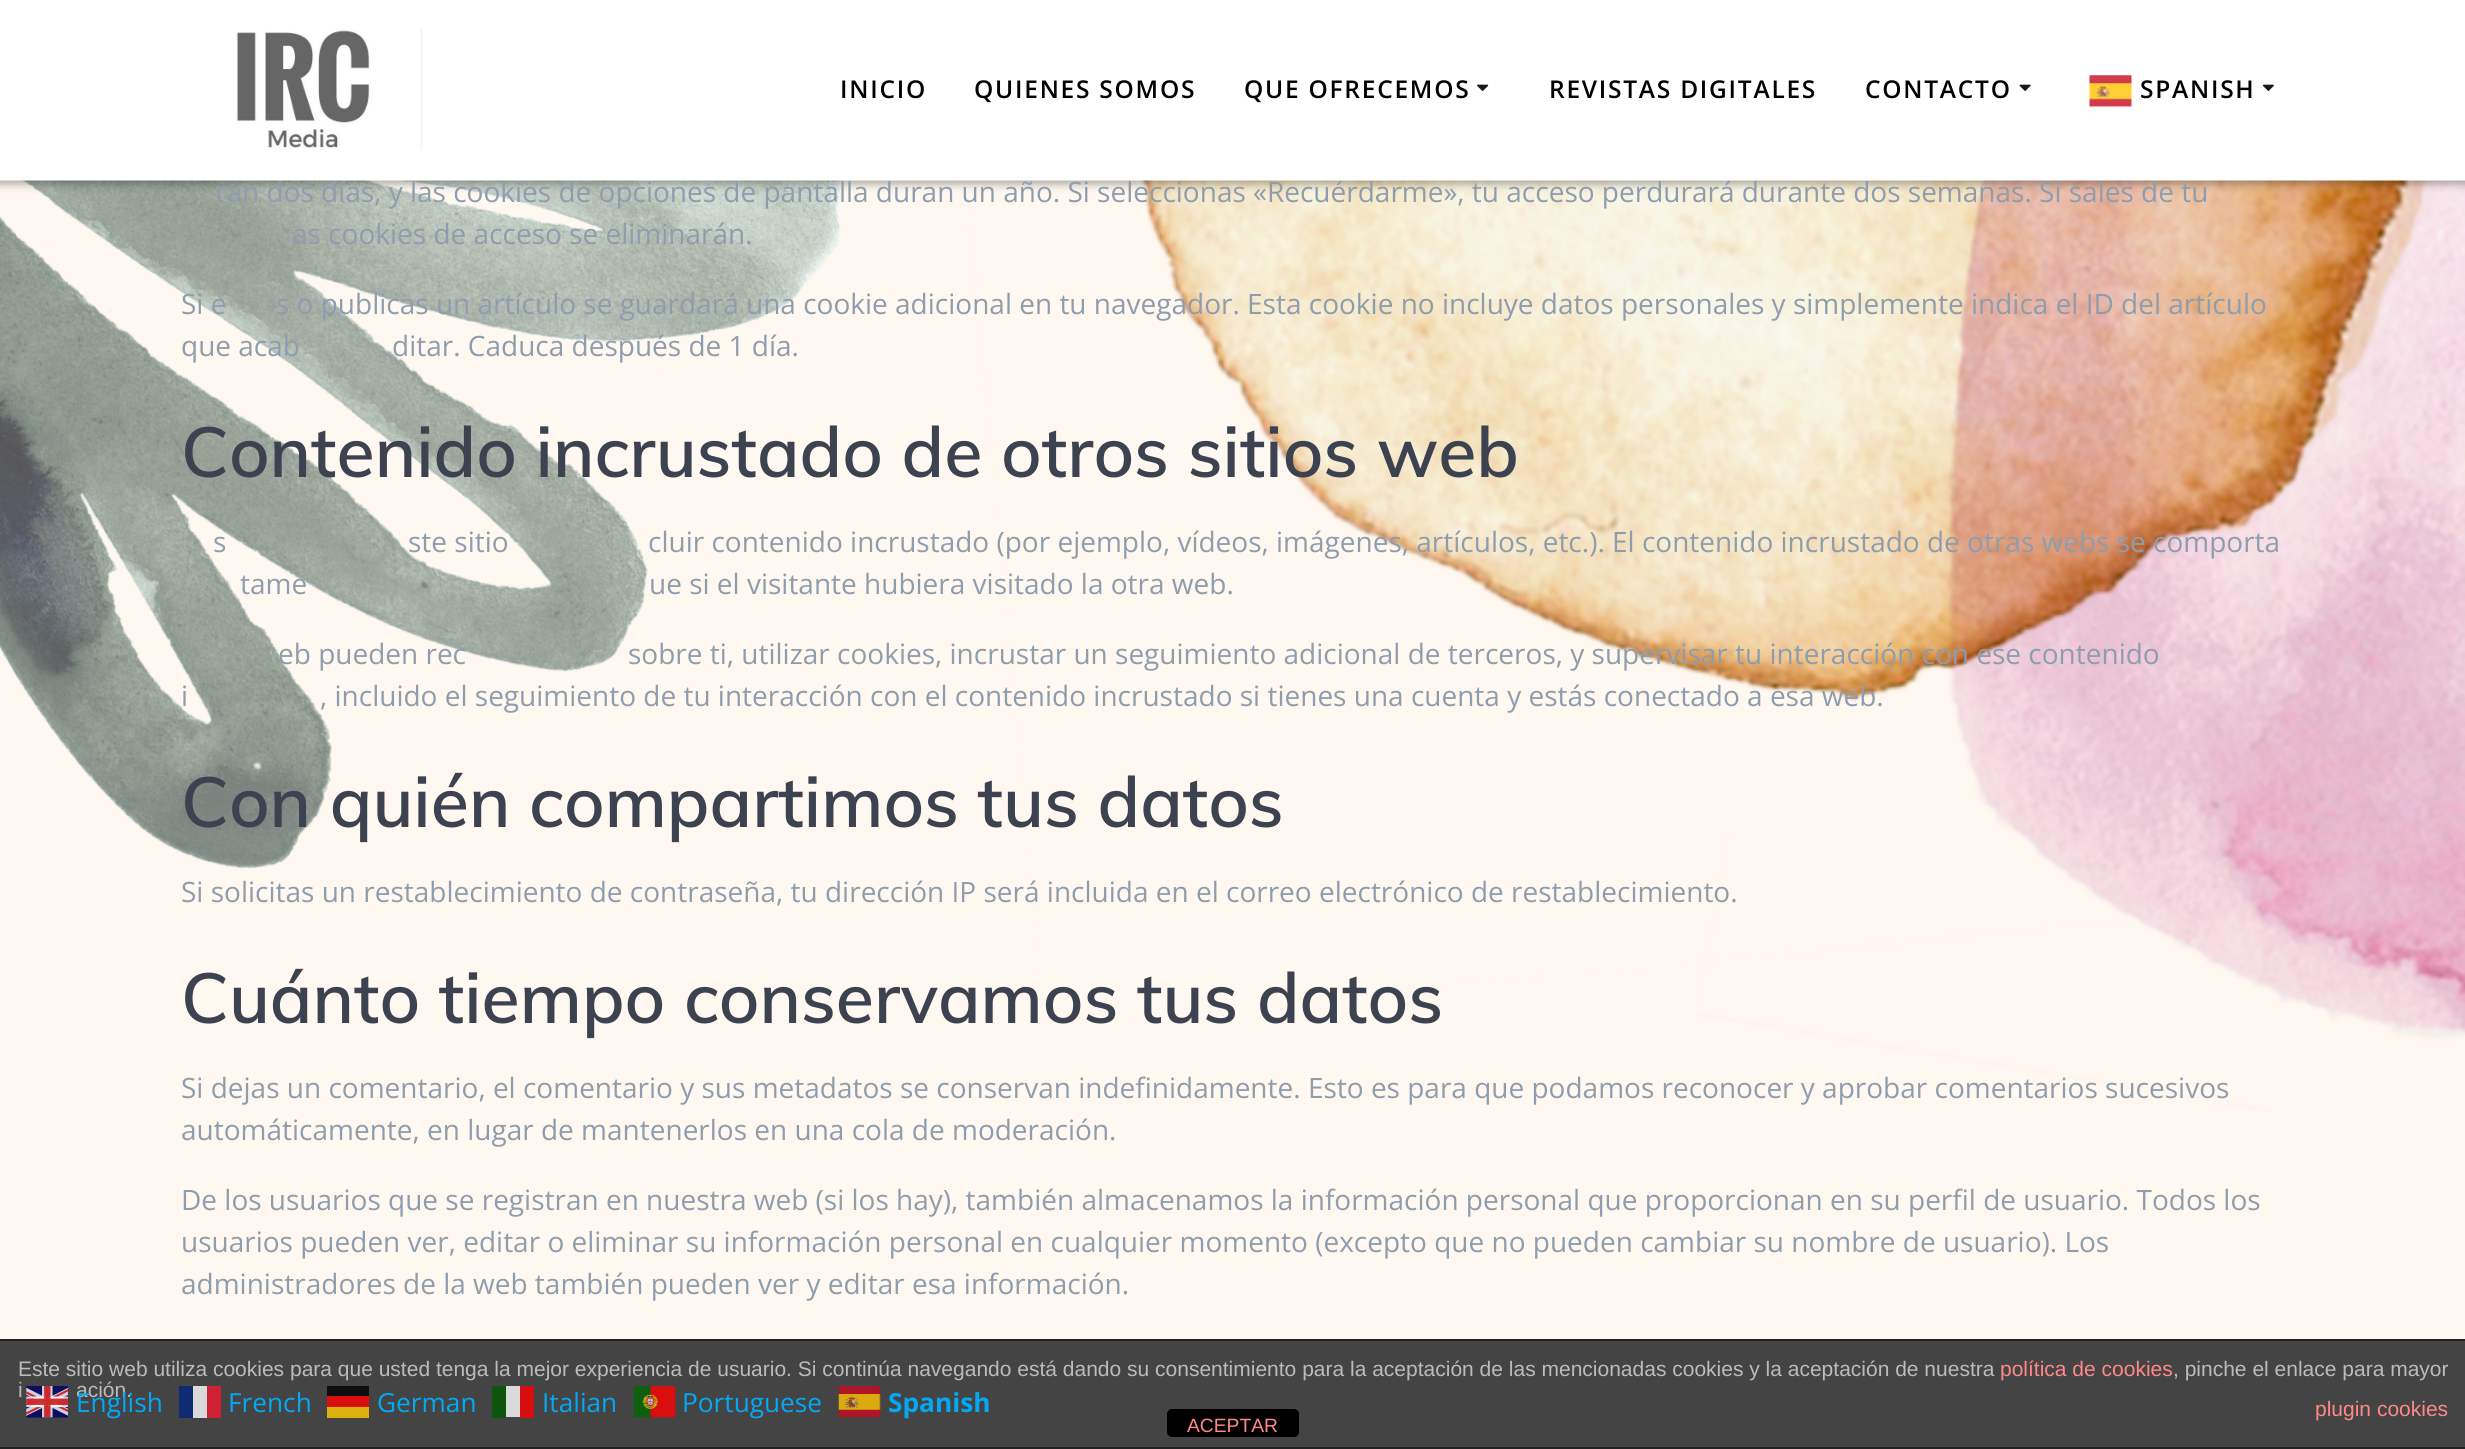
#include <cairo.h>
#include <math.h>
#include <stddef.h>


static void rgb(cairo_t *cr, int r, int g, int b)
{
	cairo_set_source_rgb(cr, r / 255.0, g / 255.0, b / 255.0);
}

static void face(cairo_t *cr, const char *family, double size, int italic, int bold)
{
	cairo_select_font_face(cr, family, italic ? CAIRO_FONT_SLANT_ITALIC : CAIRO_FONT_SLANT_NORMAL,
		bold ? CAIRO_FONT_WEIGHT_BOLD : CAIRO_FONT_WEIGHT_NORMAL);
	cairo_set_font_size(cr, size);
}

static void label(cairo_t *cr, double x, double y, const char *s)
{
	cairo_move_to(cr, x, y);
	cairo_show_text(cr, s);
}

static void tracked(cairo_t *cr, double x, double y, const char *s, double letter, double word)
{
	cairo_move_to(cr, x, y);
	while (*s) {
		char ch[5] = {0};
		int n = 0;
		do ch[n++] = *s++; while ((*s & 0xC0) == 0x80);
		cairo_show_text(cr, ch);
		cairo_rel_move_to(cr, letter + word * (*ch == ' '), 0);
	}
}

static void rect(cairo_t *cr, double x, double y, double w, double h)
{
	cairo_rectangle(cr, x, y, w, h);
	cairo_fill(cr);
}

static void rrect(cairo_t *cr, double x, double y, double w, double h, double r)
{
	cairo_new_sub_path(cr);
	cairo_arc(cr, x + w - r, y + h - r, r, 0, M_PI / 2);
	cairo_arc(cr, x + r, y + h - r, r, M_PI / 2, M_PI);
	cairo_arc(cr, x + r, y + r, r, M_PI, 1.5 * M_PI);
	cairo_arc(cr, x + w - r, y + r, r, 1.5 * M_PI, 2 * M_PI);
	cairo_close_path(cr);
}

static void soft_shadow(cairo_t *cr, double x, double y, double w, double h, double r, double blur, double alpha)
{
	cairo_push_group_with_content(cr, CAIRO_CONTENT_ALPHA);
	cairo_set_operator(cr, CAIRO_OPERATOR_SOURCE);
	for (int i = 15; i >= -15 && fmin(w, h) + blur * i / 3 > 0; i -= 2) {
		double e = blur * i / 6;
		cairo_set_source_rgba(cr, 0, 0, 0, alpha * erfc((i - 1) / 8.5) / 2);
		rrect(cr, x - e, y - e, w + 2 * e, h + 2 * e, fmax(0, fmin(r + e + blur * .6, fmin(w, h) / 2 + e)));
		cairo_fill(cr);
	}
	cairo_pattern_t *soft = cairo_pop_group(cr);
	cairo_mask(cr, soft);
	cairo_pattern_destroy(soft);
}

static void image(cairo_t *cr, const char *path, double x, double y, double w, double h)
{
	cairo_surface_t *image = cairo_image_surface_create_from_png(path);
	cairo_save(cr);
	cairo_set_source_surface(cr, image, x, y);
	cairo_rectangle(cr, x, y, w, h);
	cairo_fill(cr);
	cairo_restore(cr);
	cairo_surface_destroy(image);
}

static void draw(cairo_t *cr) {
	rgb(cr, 255, 255, 255);
	cairo_paint(cr);
	image(cr, "image0.png", 0, 180, 2465, 1159);
	rgb(cr, 0, 0, 0);
	soft_shadow(cr, -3, -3, 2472, 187, 0, 4.5, 0.33);
	rgb(cr, 255, 255, 255);
	rect(cr, 0, 0, 2465, 180);
	face(cr, "Open Sans", 28, 0, 0);
	rgb(cr, 142, 157, 174);
	label(cr, 215, 202, "ran dos días, y las cookies de opciones de pantalla duran un año. Si seleccionas «Recuérdarme», tu acceso perdurará durante dos semanas. Si sales de tu");
	cairo_set_source_rgba(cr, 1, 1, 1, 0.5);
	rect(cr, 0, 180, 2465, 1);
	image(cr, "image1.png", 236, 28, 186, 123);
	face(cr, "Open Sans SemiBold", 24.5, 0, 0);
	rgb(cr, 0, 0, 0);
	tracked(cr, 840, 98, "INICIO", 1.75, 0);
	tracked(cr, 974, 98, "QUIENES SOMOS", 1.75, 0);
	tracked(cr, 1244, 98, "QUE OFRECEMOS", 1.75, 0);
	image(cr, "image2.png", 1477, 84, 12, 7);
	tracked(cr, 1549, 98, "REVISTAS DIGITALES", 1.75, 0);
	tracked(cr, 1865, 98, "CONTACTO", 1.75, 0);
	image(cr, "image3.png", 2019, 84, 12, 7);
	image(cr, "image4.png", 2089, 75, 43, 33);
	tracked(cr, 2140, 98, "SPANISH", 1.75, 0);
	image(cr, "image5.png", 2262, 84, 12, 7);
	face(cr, "Open Sans", 28, 0, 0);
	rgb(cr, 142, 157, 174);
	label(cr, 292, 244, "as cookies de acceso se eliminarán.");
	label(cr, 181, 314, "Si e");
	label(cr, 276, 314, "s o publicas un artículo se guardará una cookie adicional en tu navegador. Esta cookie no incluye datos personales y simplemente indica el ID del artículo");
	label(cr, 181, 356, "que acab");
	label(cr, 392, 356, "ditar. Caduca después de 1 día.");
	face(cr, "Muli SemiBold", 70, 0, 0);
	rgb(cr, 60, 66, 79);
	label(cr, 181, 477, "Contenido incrustado de otros sitios web");
	face(cr, "Open Sans", 28, 0, 0);
	rgb(cr, 142, 157, 174);
	label(cr, 213, 552, "s");
	label(cr, 408, 552, "ste sitio");
	label(cr, 648, 552, "cluir contenido incrustado (por ejemplo, vídeos, imágenes, artículos, etc.). El contenido incrustado de otras webs se comporta");
	label(cr, 240, 594, "tame");
	label(cr, 649, 594, "ue si el visitante hubiera visitado la otra web.");
	label(cr, 278, 664, "eb pueden rec");
	label(cr, 628, 664, "sobre ti, utilizar cookies, incrustar un seguimiento adicional de terceros, y supervisar tu interacción con ese contenido");
	label(cr, 181, 706, "i");
	label(cr, 320, 706, ", incluido el seguimiento de tu interacción con el contenido incrustado si tienes una cuenta y estás conectado a esa web.");
	face(cr, "Muli SemiBold", 70, 0, 0);
	rgb(cr, 60, 66, 79);
	label(cr, 181, 827, "Con quién compartimos tus datos");
	face(cr, "Open Sans", 28, 0, 0);
	rgb(cr, 142, 157, 174);
	label(cr, 181, 902, "Si solicitas un restablecimiento de contraseña, tu dirección IP será incluida en el correo electrónico de restablecimiento.");
	face(cr, "Muli SemiBold", 70, 0, 0);
	rgb(cr, 60, 66, 79);
	label(cr, 181, 1023, "Cuánto tiempo conservamos tus datos");
	face(cr, "Open Sans", 28, 0, 0);
	rgb(cr, 142, 157, 174);
	label(cr, 181, 1098, "Si dejas un comentario, el comentario y sus metadatos se conservan indefinidamente. Esto es para que podamos reconocer y aprobar comentarios sucesivos");
	label(cr, 181, 1140, "automáticamente, en lugar de mantenerlos en una cola de moderación.");
	label(cr, 181, 1210, "De los usuarios que se registran en nuestra web (si los hay), también almacenamos la información personal que proporcionan en su perfil de usuario. Todos los");
	label(cr, 181, 1252, "usuarios pueden ver, editar o eliminar su información personal en cualquier momento (excepto que no pueden cambiar su nombre de usuario). Los");
	label(cr, 181, 1294, "administradores de la web también pueden ver y editar esa información.");
	rgb(cr, 68, 68, 68);
	rect(cr, 0, 1341, 2465, 106);
	rgb(cr, 34, 34, 34);
	rect(cr, 0, 1339, 2465, 2);
	rect(cr, 0, 1447, 2465, 2);
	face(cr, "Liberation Sans", 21, 0, 0);
	rgb(cr, 187, 187, 187);
	label(cr, 18, 1376, "Este sitio web utiliza cookies para que usted tenga la mejor experiencia de usuario. Si continúa navegando está dando su consentimiento para la aceptación de las mencionadas cookies y la aceptación de nuestra");
	rgb(cr, 255, 136, 136);
	label(cr, 2000, 1376, "política de cookies");
	rgb(cr, 187, 187, 187);
	label(cr, 2173, 1376, ", pinche el enlace para mayor");
	label(cr, 18, 1397, "i");
	label(cr, 76, 1397, "ación.");
	rgb(cr, 255, 136, 136);
	label(cr, 2315, 1416, "plugin cookies");
	rgb(cr, 0, 0, 0);
	rrect(cr, 1167, 1409, 132, 28, 5);
	cairo_fill(cr);
	face(cr, "Liberation Sans", 19.25, 0, 0);
	rgb(cr, 255, 136, 136);
	label(cr, 1187, 1432, "ACEPTAR");
	image(cr, "image6.png", 26, 1386, 42, 32);
	face(cr, "Open Sans", 26.25, 0, 0);
	rgb(cr, 3, 169, 244);
	label(cr, 76, 1412, "English");
	label(cr, 228, 1412, "French");
	rgb(cr, 218, 218, 218);
	rect(cr, 193, 1386, 14, 32);
	rgb(cr, 14, 44, 115);
	rect(cr, 179, 1386, 14, 32);
	rgb(cr, 208, 33, 52);
	rect(cr, 207, 1386, 14, 32);
	rgb(cr, 3, 169, 244);
	label(cr, 377, 1412, "German");
	rgb(cr, 218, 177, 14);
	rect(cr, 327, 1407, 42, 11);
	rgb(cr, 14, 14, 14);
	rect(cr, 327, 1386, 42, 10);
	rgb(cr, 218, 14, 14);
	rect(cr, 327, 1396, 42, 11);
	rgb(cr, 3, 169, 244);
	label(cr, 542, 1412, "Italian");
	rgb(cr, 218, 218, 218);
	rect(cr, 506, 1386, 14, 31);
	rgb(cr, 14, 83, 14);
	rect(cr, 492, 1386, 14, 32);
	rgb(cr, 215, 14, 14);
	rect(cr, 520, 1386, 14, 32);
	image(cr, "image7.png", 633, 1386, 43, 32);
	rgb(cr, 3, 169, 244);
	label(cr, 682, 1412, "Portuguese");
	image(cr, "image8.png", 838, 1386, 43, 32);
	face(cr, "Open Sans", 26.25, 0, 1);
	label(cr, 888, 1412, "Spanish");
}

int main(void) {
	cairo_surface_t *surface = cairo_image_surface_create(CAIRO_FORMAT_RGB24, 2465, 1449);
	cairo_t *cr = cairo_create(surface);
	cairo_font_options_t *options = cairo_font_options_create();
	cairo_font_options_set_hint_metrics(options, CAIRO_HINT_METRICS_OFF);
	cairo_font_options_set_hint_style(options, CAIRO_HINT_STYLE_NONE);
	cairo_set_font_options(cr, options);
	cairo_set_miter_limit(cr, 4);
	draw(cr);
	cairo_surface_write_to_png(surface, "render.png");
	cairo_font_options_destroy(options);
	cairo_destroy(cr);
	cairo_surface_destroy(surface);
	return 0;
}
